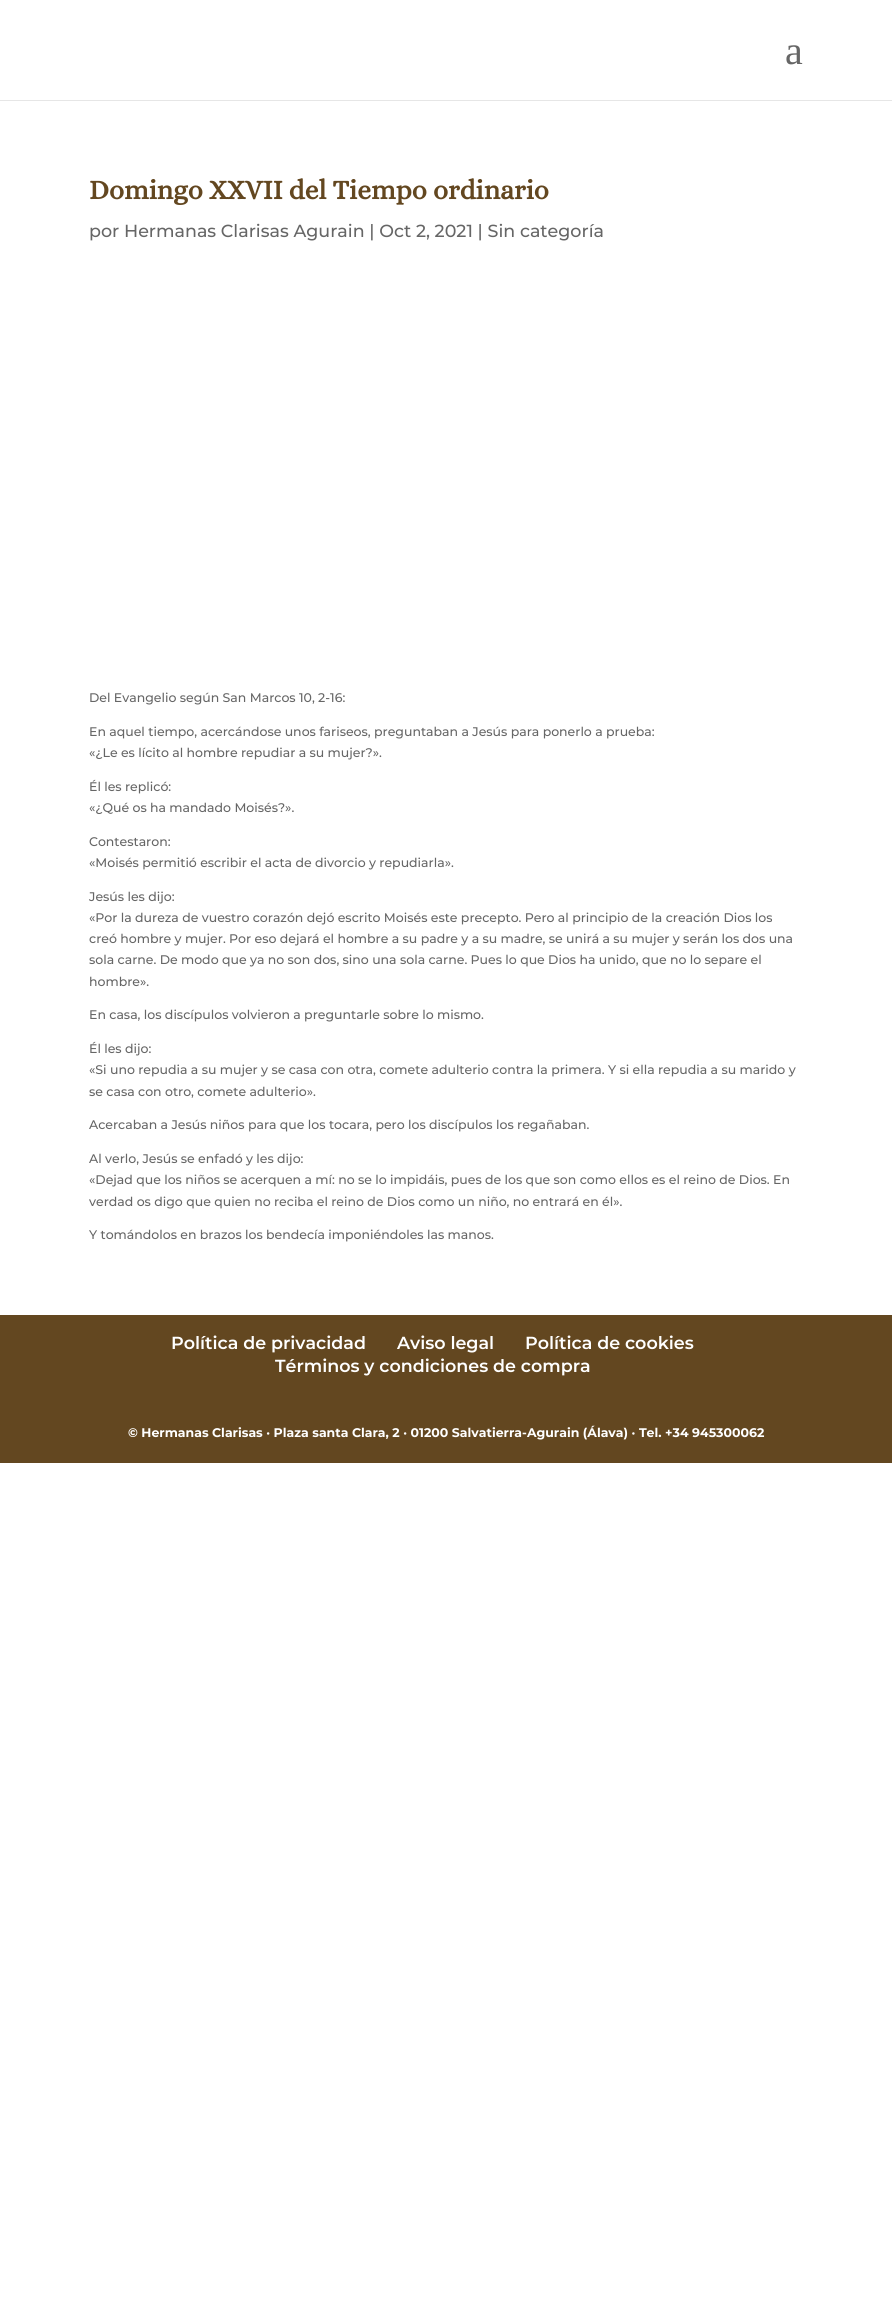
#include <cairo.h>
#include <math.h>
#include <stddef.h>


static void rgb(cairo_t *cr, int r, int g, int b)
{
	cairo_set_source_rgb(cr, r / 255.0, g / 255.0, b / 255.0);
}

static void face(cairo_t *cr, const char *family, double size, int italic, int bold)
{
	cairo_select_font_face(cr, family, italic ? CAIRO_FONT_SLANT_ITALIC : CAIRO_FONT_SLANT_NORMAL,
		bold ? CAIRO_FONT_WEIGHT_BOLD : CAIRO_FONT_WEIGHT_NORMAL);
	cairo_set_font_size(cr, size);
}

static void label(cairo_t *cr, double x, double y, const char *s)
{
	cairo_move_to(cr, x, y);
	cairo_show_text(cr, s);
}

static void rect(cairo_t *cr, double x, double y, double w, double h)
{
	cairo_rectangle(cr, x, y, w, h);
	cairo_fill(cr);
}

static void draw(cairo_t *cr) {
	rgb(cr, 255, 255, 255);
	cairo_paint(cr);
	rgb(cr, 230, 230, 230);
	cairo_new_path(cr);
	cairo_move_to(cr, 0, 100);
	cairo_line_to(cr, 0, 101);
	cairo_line_to(cr, 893, 101);
	cairo_line_to(cr, 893, 1);
	cairo_line_to(cr, 892, 1);
	cairo_line_to(cr, 892, 100);
	cairo_close_path(cr);
	cairo_fill(cr);
	face(cr, "Liberation Serif", 40, 0, 0);
	rgb(cr, 102, 102, 102);
	label(cr, 785, 64, "a");
	face(cr, "Alice", 27.5, 0, 1);
	rgb(cr, 99, 71, 32);
	label(cr, 89, 199, "Domingo XXVII del Tiempo ordinario");
	face(cr, "Montserrat Medium", 17.5, 0, 0);
	rgb(cr, 102, 102, 102);
	label(cr, 89, 237, "por Hermanas Clarisas Agurain | Oct 2, 2021 | Sin categoría");
	face(cr, "Montserrat Medium", 12.5, 0, 0);
	label(cr, 89, 702, "Del Evangelio según San Marcos 10, 2-16:");
	label(cr, 89, 736, "En aquel tiempo, acercándose unos fariseos, preguntaban a Jesús para ponerlo a prueba:");
	label(cr, 89, 757, "«¿Le es lícito al hombre repudiar a su mujer?».");
	label(cr, 89, 791, "Él les replicó:");
	label(cr, 89, 812, "«¿Qué os ha mandado Moisés?».");
	label(cr, 89, 846, "Contestaron:");
	label(cr, 89, 867, "«Moisés permitió escribir el acta de divorcio y repudiarla».");
	label(cr, 89, 901, "Jesús les dijo:");
	label(cr, 89, 922, "«Por la dureza de vuestro corazón dejó escrito Moisés este precepto. Pero al principio de la creación Dios los");
	label(cr, 89, 943, "creó hombre y mujer. Por eso dejará el hombre a su padre y a su madre, se unirá a su mujer y serán los dos una");
	label(cr, 89, 964, "sola carne. De modo que ya no son dos, sino una sola carne. Pues lo que Dios ha unido, que no lo separe el");
	label(cr, 89, 986, "hombre».");
	label(cr, 89, 1019, "En casa, los discípulos volvieron a preguntarle sobre lo mismo.");
	label(cr, 89, 1053, "Él les dijo:");
	label(cr, 89, 1074, "«Si uno repudia a su mujer y se casa con otra, comete adulterio contra la primera. Y si ella repudia a su marido y");
	label(cr, 89, 1096, "se casa con otro, comete adulterio».");
	label(cr, 89, 1129, "Acercaban a Jesús niños para que los tocara, pero los discípulos los regañaban.");
	label(cr, 89, 1163, "Al verlo, Jesús se enfadó y les dijo:");
	label(cr, 89, 1184, "«Dejad que los niños se acerquen a mí: no se lo impidáis, pues de los que son como ellos es el reino de Dios. En");
	label(cr, 89, 1206, "verdad os digo que quien no reciba el reino de Dios como un niño, no entrará en él».");
	label(cr, 89, 1239, "Y tomándolos en brazos los bendecía imponiéndoles las manos.");
	rgb(cr, 99, 71, 32);
	rect(cr, 0, 1315, 892, 148);
	face(cr, "Montserrat SemiBold", 17.5, 0, 0);
	rgb(cr, 255, 255, 255);
	label(cr, 171, 1349, "Política de privacidad");
	label(cr, 397, 1349, "Aviso legal");
	label(cr, 525, 1349, "Política de cookies");
	label(cr, 275, 1372, "Términos y condiciones de compra");
	face(cr, "Montserrat", 12.5, 0, 1);
	label(cr, 128, 1437, "© Hermanas Clarisas · Plaza santa Clara, 2 · 01200 Salvatierra-Agurain (Álava) · Tel. +34 945300062");
}

int main(void) {
	cairo_surface_t *surface = cairo_image_surface_create(CAIRO_FORMAT_RGB24, 892, 2306);
	cairo_t *cr = cairo_create(surface);
	cairo_font_options_t *options = cairo_font_options_create();
	cairo_font_options_set_hint_metrics(options, CAIRO_HINT_METRICS_OFF);
	cairo_font_options_set_hint_style(options, CAIRO_HINT_STYLE_NONE);
	cairo_set_font_options(cr, options);
	cairo_set_miter_limit(cr, 4);
	draw(cr);
	cairo_surface_write_to_png(surface, "render.png");
	cairo_font_options_destroy(options);
	cairo_destroy(cr);
	cairo_surface_destroy(surface);
	return 0;
}
